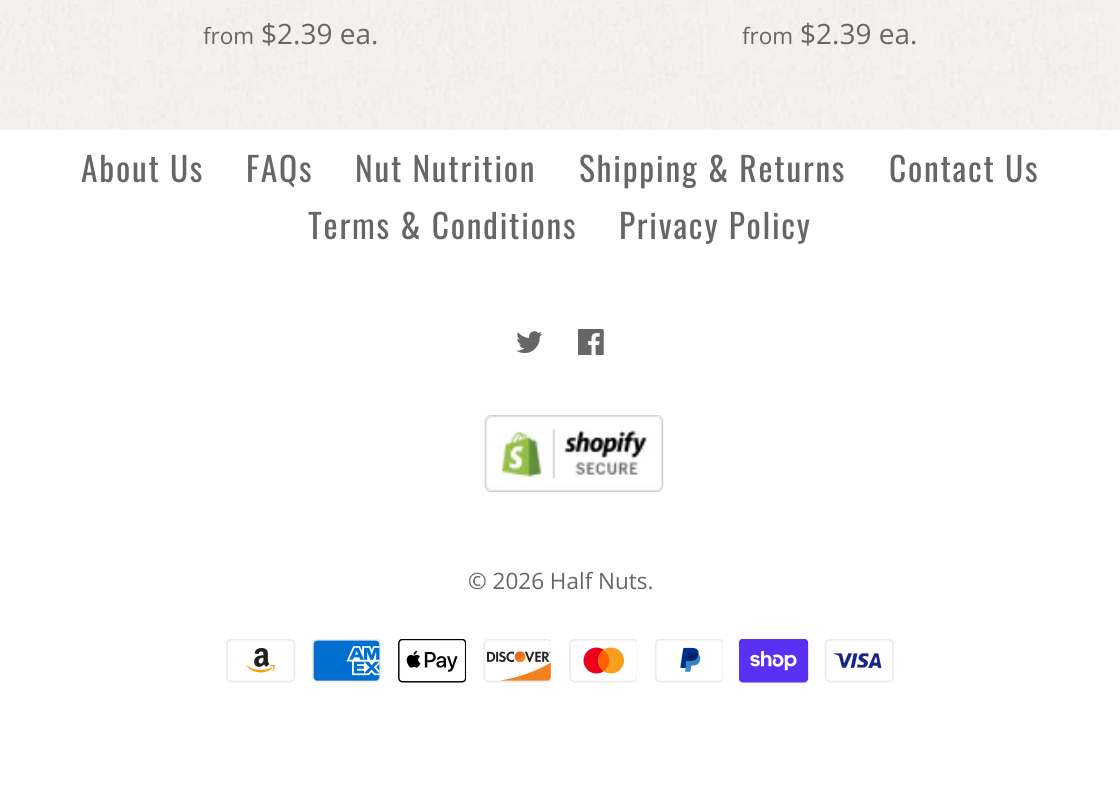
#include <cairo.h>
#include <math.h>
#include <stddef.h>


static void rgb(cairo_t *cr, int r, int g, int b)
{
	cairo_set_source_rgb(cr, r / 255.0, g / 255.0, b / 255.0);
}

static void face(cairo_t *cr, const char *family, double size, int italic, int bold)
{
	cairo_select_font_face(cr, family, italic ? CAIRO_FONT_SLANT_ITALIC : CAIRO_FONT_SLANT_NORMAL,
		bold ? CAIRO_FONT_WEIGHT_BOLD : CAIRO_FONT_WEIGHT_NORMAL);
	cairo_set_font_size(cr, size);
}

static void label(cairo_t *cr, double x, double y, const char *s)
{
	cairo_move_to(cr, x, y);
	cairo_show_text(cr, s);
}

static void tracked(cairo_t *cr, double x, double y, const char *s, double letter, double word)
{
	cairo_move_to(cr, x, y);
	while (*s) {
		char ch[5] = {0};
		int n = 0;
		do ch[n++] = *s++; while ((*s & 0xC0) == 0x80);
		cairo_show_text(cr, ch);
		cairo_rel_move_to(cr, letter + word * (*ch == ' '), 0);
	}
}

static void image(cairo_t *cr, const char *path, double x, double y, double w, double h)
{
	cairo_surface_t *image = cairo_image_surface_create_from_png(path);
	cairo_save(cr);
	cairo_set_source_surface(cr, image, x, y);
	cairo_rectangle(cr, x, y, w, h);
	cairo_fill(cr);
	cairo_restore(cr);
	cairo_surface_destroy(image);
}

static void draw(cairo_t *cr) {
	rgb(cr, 255, 255, 255);
	cairo_paint(cr);
	image(cr, "image0.png", 0, 0, 1120, 130);
	face(cr, "Open Sans", 22.5, 0, 0);
	rgb(cr, 102, 102, 102);
	label(cr, 203, 44, "from");
	face(cr, "Open Sans", 28, 0, 0);
	label(cr, 261, 44, "$2.39 ea.");
	face(cr, "Open Sans", 22.5, 0, 0);
	label(cr, 742, 44, "from");
	face(cr, "Open Sans", 28, 0, 0);
	label(cr, 800, 44, "$2.39 ea.");
	face(cr, "Oswald", 33.5, 0, 0);
	tracked(cr, 81, 182, "About Us", 1.75, 0);
	tracked(cr, 246, 182, "FAQs", 1.75, 0);
	tracked(cr, 355, 182, "Nut Nutrition", 1.75, 0);
	tracked(cr, 579, 182, "Shipping & Returns", 1.75, 0);
	tracked(cr, 889, 182, "Contact Us", 1.75, 0);
	tracked(cr, 308, 239, "Terms & Conditions", 1.75, 0);
	tracked(cr, 619, 239, "Privacy Policy", 1.75, 0);
	image(cr, "image1.png", 516, 331, 27, 23);
	image(cr, "image2.png", 578, 329, 26, 26);
	image(cr, "image3.png", 484, 415, 180, 77);
	face(cr, "Open Sans", 22.5, 0, 0);
	label(cr, 468, 589, "© 2026 Half Nuts.");
	image(cr, "image4.png", 226, 639, 70, 44);
	image(cr, "image5.png", 312, 639, 69, 44);
	image(cr, "image6.png", 398, 639, 68, 44);
	image(cr, "image7.png", 483, 639, 68, 44);
	image(cr, "image8.png", 569, 639, 68, 44);
	image(cr, "image9.png", 655, 639, 68, 44);
	image(cr, "image10.png", 739, 639, 70, 44);
	image(cr, "image11.png", 824, 639, 70, 44);
}

int main(void) {
	cairo_surface_t *surface = cairo_image_surface_create(CAIRO_FORMAT_RGB24, 1120, 785);
	cairo_t *cr = cairo_create(surface);
	cairo_font_options_t *options = cairo_font_options_create();
	cairo_font_options_set_hint_metrics(options, CAIRO_HINT_METRICS_OFF);
	cairo_font_options_set_hint_style(options, CAIRO_HINT_STYLE_NONE);
	cairo_set_font_options(cr, options);
	cairo_set_miter_limit(cr, 4);
	draw(cr);
	cairo_surface_write_to_png(surface, "render.png");
	cairo_font_options_destroy(options);
	cairo_destroy(cr);
	cairo_surface_destroy(surface);
	return 0;
}
